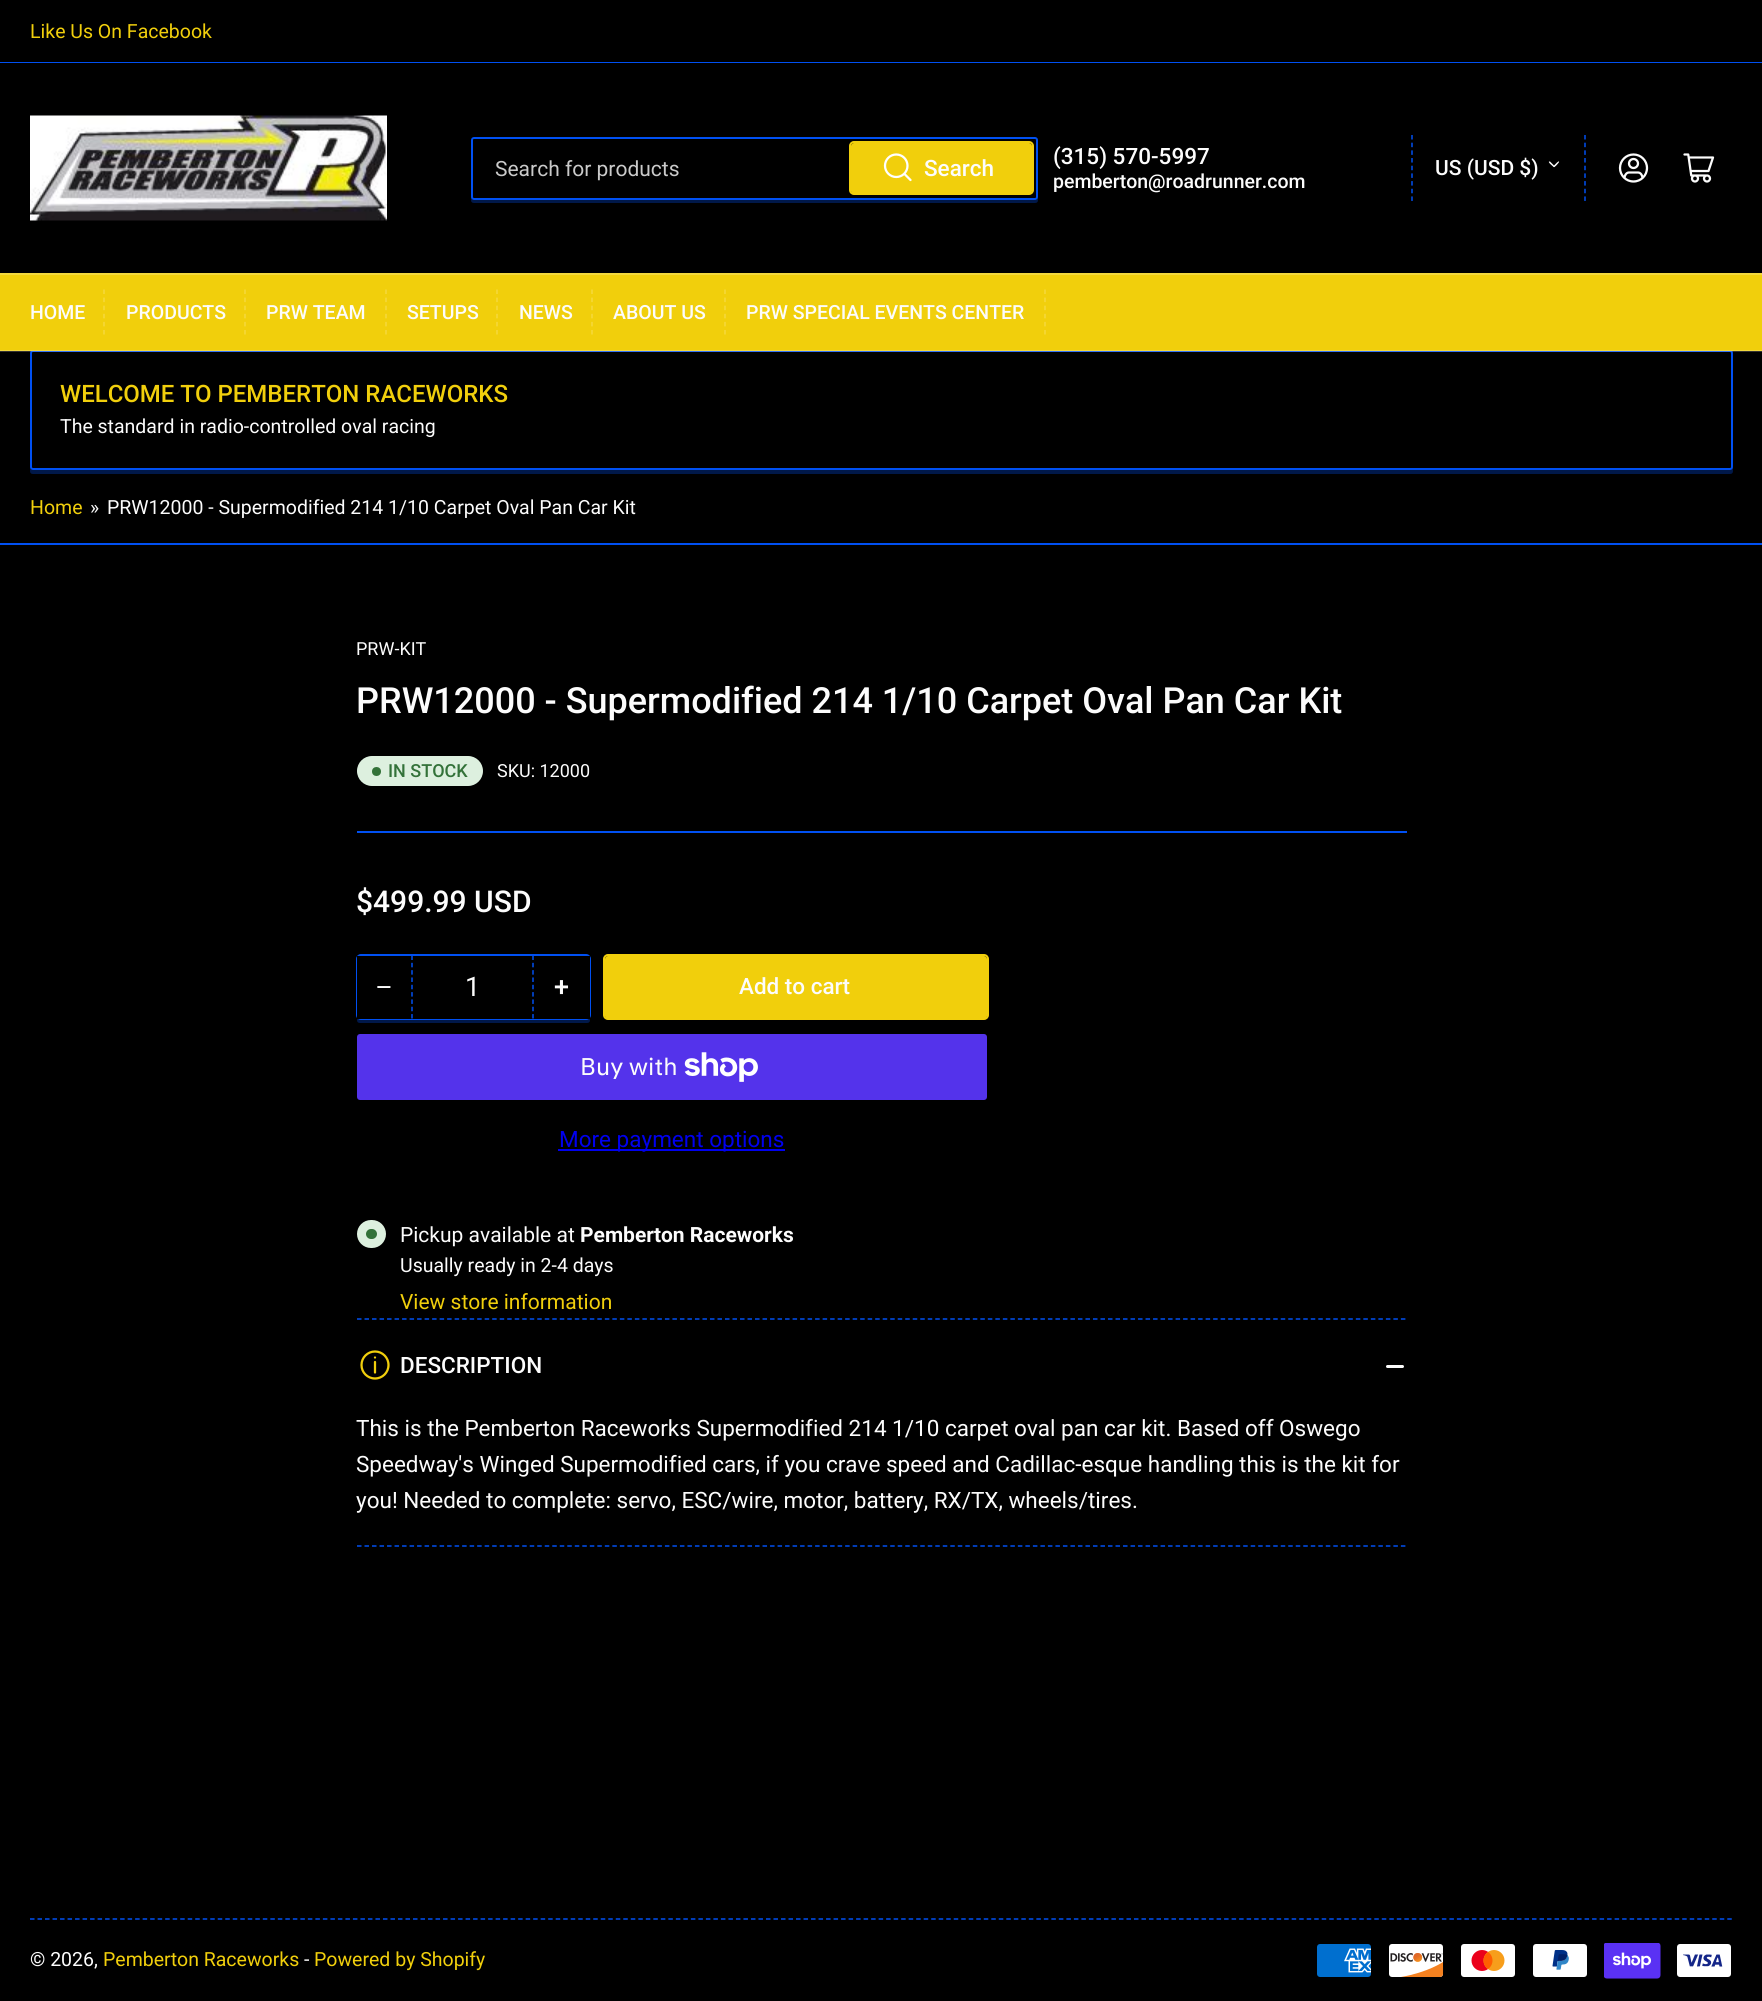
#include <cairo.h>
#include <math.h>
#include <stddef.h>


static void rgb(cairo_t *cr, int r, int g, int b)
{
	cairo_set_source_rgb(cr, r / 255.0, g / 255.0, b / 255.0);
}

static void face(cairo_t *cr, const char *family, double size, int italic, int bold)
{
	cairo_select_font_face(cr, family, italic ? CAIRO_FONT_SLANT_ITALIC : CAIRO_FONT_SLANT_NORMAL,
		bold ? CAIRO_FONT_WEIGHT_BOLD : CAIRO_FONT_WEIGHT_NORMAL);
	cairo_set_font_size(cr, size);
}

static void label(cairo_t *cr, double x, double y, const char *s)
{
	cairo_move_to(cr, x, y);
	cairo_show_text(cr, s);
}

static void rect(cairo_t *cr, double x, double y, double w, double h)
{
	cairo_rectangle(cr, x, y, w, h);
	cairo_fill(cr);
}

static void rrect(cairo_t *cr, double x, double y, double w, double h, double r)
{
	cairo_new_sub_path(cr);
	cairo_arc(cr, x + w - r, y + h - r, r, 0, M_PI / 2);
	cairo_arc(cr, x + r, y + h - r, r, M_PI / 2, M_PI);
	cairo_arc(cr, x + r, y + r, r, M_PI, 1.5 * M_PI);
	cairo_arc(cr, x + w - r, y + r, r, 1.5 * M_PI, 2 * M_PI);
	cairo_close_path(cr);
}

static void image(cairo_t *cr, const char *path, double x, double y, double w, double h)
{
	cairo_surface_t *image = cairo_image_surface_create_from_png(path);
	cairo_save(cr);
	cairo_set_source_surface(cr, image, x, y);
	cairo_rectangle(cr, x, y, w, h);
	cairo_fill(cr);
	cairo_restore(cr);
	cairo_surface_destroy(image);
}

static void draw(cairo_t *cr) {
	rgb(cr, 0, 0, 0);
	cairo_paint(cr);
	rgb(cr, 0, 80, 242);
	rect(cr, 0, 62, 1762, 1);
	face(cr, "Roboto", 19.5, 0, 0);
	rgb(cr, 241, 207, 12);
	label(cr, 30, 38, "Like Us On Facebook");
	image(cr, "image0.png", 30, 115, 357, 106);
	rgb(cr, 0, 24, 73);
	cairo_new_path(cr);
	cairo_move_to(cr, 471, 196);
	cairo_line_to(cr, 471, 200);
	cairo_curve_to(cr, 471, 202, 472, 203, 474, 203);
	cairo_line_to(cr, 1035, 203);
	cairo_curve_to(cr, 1037, 203, 1038, 202, 1038, 200);
	cairo_line_to(cr, 1038, 196);
	cairo_curve_to(cr, 1038, 198, 1037, 200, 1035, 200);
	cairo_line_to(cr, 474, 200);
	cairo_curve_to(cr, 472, 200, 471, 198, 471, 196);
	cairo_close_path(cr);
	cairo_fill(cr);
	rgb(cr, 0, 0, 0);
	rrect(cr, 472, 138, 565, 61, 2);
	cairo_fill_preserve(cr);
	rgb(cr, 0, 80, 242);
	cairo_stroke(cr);
	face(cr, "Roboto", 21, 0, 0);
	rgb(cr, 202, 202, 202);
	label(cr, 495, 176, "Search for products");
	rrect(cr, 850, 142, 183, 52, 4);
	rgb(cr, 241, 207, 12);
	cairo_stroke(cr);
	rrect(cr, 851, 143, 181, 51, 3);
	cairo_fill(cr);
	image(cr, "image1.png", 883, 153, 29, 29);
	face(cr, "Roboto Medium", 22.5, 0, 0);
	rgb(cr, 252, 252, 252);
	label(cr, 924, 176, "Search");
	label(cr, 1053, 164, "(315) 570-5997");
	face(cr, "Roboto Medium", 19.5, 0, 0);
	label(cr, 1053, 188, "pemberton@roadrunner.com");
	cairo_new_path(cr);
	cairo_move_to(cr, 1585, 135);
	cairo_line_to(cr, 1585, 201);
	rgb(cr, 0, 80, 242);
	cairo_set_line_width(cr, 1.5);
	cairo_set_dash(cr, (double[]){4.5, 3.18}, 2, 0);
	cairo_stroke(cr);
	cairo_new_path(cr);
	cairo_move_to(cr, 1412, 135);
	cairo_line_to(cr, 1412, 201);
	cairo_stroke(cr);
	face(cr, "Roboto Medium", 21, 0, 0);
	rgb(cr, 252, 252, 252);
	label(cr, 1435, 175, "US (USD $)");
	cairo_new_path(cr);
	cairo_move_to(cr, 1550, 161.5);
	cairo_line_to(cr, 1553.5, 165);
	cairo_curve_to(cr, 1555.5, 167, 1554.5, 168, 1552.5, 166);
	cairo_curve_to(cr, 1552, 165.5, 1548, 162.5, 1549, 161.5);
	cairo_close_path(cr);
	cairo_fill(cr);
	cairo_new_path(cr);
	cairo_move_to(cr, 1553.5, 166);
	cairo_line_to(cr, 1557, 162.5);
	cairo_curve_to(cr, 1559, 160.5, 1560, 161.5, 1558, 163.5);
	cairo_curve_to(cr, 1557.5, 164, 1554.5, 168, 1553.5, 167);
	cairo_close_path(cr);
	cairo_fill(cr);
	image(cr, "image2.png", 1618, 153, 31, 30);
	image(cr, "image3.png", 1683, 153, 32, 30);
	rgb(cr, 0, 24, 73);
	cairo_new_path(cr);
	cairo_move_to(cr, 30, 466);
	cairo_line_to(cr, 30, 471);
	cairo_curve_to(cr, 30, 473, 31, 474, 33, 474);
	cairo_line_to(cr, 1730, 474);
	cairo_curve_to(cr, 1732, 474, 1733, 473, 1733, 471);
	cairo_line_to(cr, 1733, 357);
	cairo_line_to(cr, 1732, 355);
	cairo_line_to(cr, 1732, 466);
	cairo_curve_to(cr, 1732, 468, 1731, 470, 1730, 470);
	cairo_line_to(cr, 33, 470);
	cairo_curve_to(cr, 31, 470, 30, 468, 30, 466);
	cairo_close_path(cr);
	cairo_fill(cr);
	rgb(cr, 0, 0, 0);
	rrect(cr, 31, 351, 1701, 118, 2);
	cairo_fill_preserve(cr);
	rgb(cr, 0, 80, 242);
	cairo_set_line_width(cr, 2);
	cairo_set_dash(cr, NULL, 0, 0);
	cairo_stroke(cr);
	rgb(cr, 241, 207, 12);
	rect(cr, 0, 275, 1762, 76);
	rgb(cr, 244, 217, 61);
	rect(cr, 0, 273, 1762, 2);
	cairo_set_source_rgba(cr, 1, 1, 1, 0.2);
	rect(cr, 0, 350, 1762, 2);
	face(cr, "Roboto Medium", 19.5, 0, 0);
	rgb(cr, 252, 252, 252);
	label(cr, 30, 319, "HOME");
	cairo_new_path(cr);
	cairo_move_to(cr, 104, 289.5);
	cairo_line_to(cr, 104, 334.5);
	rgb(cr, 244, 217, 61);
	cairo_set_line_width(cr, 1.5);
	cairo_set_dash(cr, (double[]){4.5, 3.6}, 2, 0);
	cairo_stroke(cr);
	rgb(cr, 252, 252, 252);
	label(cr, 126, 319, "PRODUCTS");
	cairo_new_path(cr);
	cairo_move_to(cr, 245, 289.5);
	cairo_line_to(cr, 245, 334.5);
	rgb(cr, 244, 217, 61);
	cairo_stroke(cr);
	rgb(cr, 252, 252, 252);
	label(cr, 266, 319, "PRW TEAM");
	cairo_new_path(cr);
	cairo_move_to(cr, 386, 289.5);
	cairo_line_to(cr, 386, 334.5);
	rgb(cr, 244, 217, 61);
	cairo_stroke(cr);
	rgb(cr, 252, 252, 252);
	label(cr, 407, 319, "SETUPS");
	cairo_new_path(cr);
	cairo_move_to(cr, 497, 289.5);
	cairo_line_to(cr, 497, 334.5);
	rgb(cr, 244, 217, 61);
	cairo_stroke(cr);
	rgb(cr, 252, 252, 252);
	label(cr, 519, 319, "NEWS");
	cairo_new_path(cr);
	cairo_move_to(cr, 592, 289.5);
	cairo_line_to(cr, 592, 334.5);
	rgb(cr, 244, 217, 61);
	cairo_stroke(cr);
	rgb(cr, 252, 252, 252);
	label(cr, 613, 319, "ABOUT US");
	cairo_new_path(cr);
	cairo_move_to(cr, 725, 289.5);
	cairo_line_to(cr, 725, 334.5);
	rgb(cr, 244, 217, 61);
	cairo_stroke(cr);
	rgb(cr, 252, 252, 252);
	label(cr, 746, 319, "PRW SPECIAL EVENTS CENTER");
	cairo_new_path(cr);
	cairo_move_to(cr, 1045, 289.5);
	cairo_line_to(cr, 1045, 334.5);
	rgb(cr, 244, 217, 61);
	cairo_stroke(cr);
	face(cr, "Roboto Medium", 24, 0, 0);
	rgb(cr, 241, 207, 12);
	label(cr, 60, 402, "WELCOME TO PEMBERTON RACEWORKS");
	face(cr, "Roboto", 19.5, 0, 0);
	rgb(cr, 252, 252, 252);
	label(cr, 60, 433, "The standard in radio-controlled oval racing");
	rgb(cr, 0, 80, 242);
	rect(cr, 0, 543, 1762, 2);
	rgb(cr, 241, 207, 12);
	label(cr, 30, 514, "Home");
	rgb(cr, 252, 252, 252);
	label(cr, 90, 514, "»");
	label(cr, 107, 514, "PRW12000 - Supermodified 214 1/10 Carpet Oval Pan Car Kit");
	rgb(cr, 0, 80, 242);
	rect(cr, 357, 831, 1050, 2);
	face(cr, "Roboto", 18, 0, 0);
	rgb(cr, 252, 252, 252);
	label(cr, 356, 655, "PRW-KIT");
	face(cr, "Roboto Medium", 36, 0, 0);
	label(cr, 356, 713, "PRW12000 - Supermodified 214 1/10 Carpet Oval Pan Car Kit");
	rgb(cr, 221, 240, 223);
	rrect(cr, 357, 756, 126, 30, 15);
	cairo_fill(cr);
	rgb(cr, 51, 114, 57);
	cairo_arc(cr, 376.5, 771.5, 4.5, 0, 2 * M_PI);
	cairo_fill(cr);
	face(cr, "Roboto Medium", 18, 0, 0);
	label(cr, 388, 777, "IN STOCK");
	face(cr, "Roboto", 18, 0, 0);
	rgb(cr, 252, 252, 252);
	label(cr, 497, 777, "SKU: 12000");
	face(cr, "Roboto Medium", 30, 0, 0);
	label(cr, 356, 912, "$499.99 USD");
	rgb(cr, 0, 24, 73);
	cairo_new_path(cr);
	cairo_move_to(cr, 357, 1016);
	cairo_line_to(cr, 357, 1020);
	cairo_curve_to(cr, 357, 1022, 358, 1023, 360, 1023);
	cairo_line_to(cr, 587, 1023);
	cairo_curve_to(cr, 589, 1023, 590, 1022, 590, 1020);
	cairo_line_to(cr, 590, 963);
	cairo_line_to(cr, 590, 961);
	cairo_line_to(cr, 590, 1016);
	cairo_curve_to(cr, 590, 1017, 588, 1018, 586, 1018);
	cairo_line_to(cr, 360, 1018);
	cairo_curve_to(cr, 358, 1018, 357, 1017, 357, 1016);
	cairo_close_path(cr);
	cairo_fill(cr);
	rrect(cr, 357, 955, 233, 64, 4);
	rgb(cr, 0, 80, 242);
	cairo_set_line_width(cr, 2);
	cairo_set_dash(cr, NULL, 0, 0);
	cairo_stroke(cr);
	rgb(cr, 0, 0, 0);
	rect(cr, 411, 1018, 123, 1);
	rect(cr, 357, 956, 54, 63);
	face(cr, "Liberation Sans", 27, 0, 0);
	rgb(cr, 252, 252, 252);
	label(cr, 376, 996, "−");
	cairo_new_path(cr);
	cairo_move_to(cr, 533, 955.5);
	cairo_line_to(cr, 533, 1018.5);
	rgb(cr, 0, 80, 242);
	cairo_set_line_width(cr, 1.5);
	cairo_set_dash(cr, (double[]){4.5, 2.82}, 2, 0);
	cairo_stroke(cr);
	cairo_new_path(cr);
	cairo_move_to(cr, 412, 955.5);
	cairo_line_to(cr, 412, 1018.5);
	cairo_stroke(cr);
	face(cr, "Roboto", 27, 0, 0);
	rgb(cr, 252, 252, 252);
	label(cr, 465, 996, "1");
	rgb(cr, 0, 0, 0);
	rect(cr, 534, 956, 56, 63);
	face(cr, "Roboto Medium", 27, 0, 0);
	rgb(cr, 252, 252, 252);
	label(cr, 554, 996, "+");
	rrect(cr, 604, 955, 384, 64, 4);
	rgb(cr, 241, 207, 12);
	cairo_set_line_width(cr, 2);
	cairo_set_dash(cr, NULL, 0, 0);
	cairo_stroke(cr);
	rrect(cr, 605, 956, 382, 63, 3);
	cairo_fill(cr);
	face(cr, "Roboto Medium", 22.5, 0, 0);
	rgb(cr, 252, 252, 252);
	label(cr, 739, 994, "Add to cart");
	rgb(cr, 84, 51, 235);
	rrect(cr, 357, 1034, 630, 66, 3);
	cairo_fill(cr);
	face(cr, "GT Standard", 24, 0, 0);
	rgb(cr, 252, 252, 252);
	label(cr, 580, 1075, "Buy with");
	image(cr, "image4.png", 684, 1052, 74, 30);
	rgb(cr, 0, 0, 238);
	rect(cr, 558, 1149, 227, 2);
	face(cr, "Roboto", 22.5, 0, 0);
	label(cr, 559, 1147, "More payment options");
	rgb(cr, 221, 240, 223);
	rrect(cr, 357, 1220, 29, 28, 14);
	cairo_fill(cr);
	rgb(cr, 51, 114, 57);
	rrect(cr, 366, 1229, 11, 10, 5);
	cairo_fill(cr);
	face(cr, "Roboto", 21, 0, 0);
	rgb(cr, 252, 252, 252);
	label(cr, 400, 1242, "Pickup available at");
	face(cr, "Roboto", 21, 0, 1);
	label(cr, 580, 1242, "Pemberton Raceworks");
	face(cr, "Roboto", 19.5, 0, 0);
	label(cr, 400, 1272, "Usually ready in 2-4 days");
	face(cr, "Roboto", 21, 0, 0);
	rgb(cr, 241, 207, 12);
	label(cr, 400, 1309, "View store information");
	cairo_new_path(cr);
	cairo_move_to(cr, 357, 1319);
	cairo_line_to(cr, 1407, 1319);
	rgb(cr, 0, 80, 242);
	cairo_set_line_width(cr, 1.5);
	cairo_set_dash(cr, (double[]){4.5, 3.01}, 2, 0);
	cairo_stroke(cr);
	cairo_new_path(cr);
	cairo_move_to(cr, 357, 1546);
	cairo_line_to(cr, 1407, 1546);
	cairo_stroke(cr);
	image(cr, "image5.png", 360, 1350, 30, 30);
	face(cr, "Roboto Medium", 22.5, 0, 0);
	rgb(cr, 252, 252, 252);
	label(cr, 400, 1373, "DESCRIPTION");
	rrect(cr, 1386, 1365, 12, 3, 1.5);
	cairo_fill(cr);
	rrect(cr, 1394, 1365, 10, 3, 1.5);
	cairo_fill(cr);
	face(cr, "Roboto", 22.5, 0, 0);
	label(cr, 356, 1436, "This is the Pemberton Raceworks Supermodified 214 1/10 carpet oval pan car kit. Based off Oswego");
	label(cr, 356, 1472, "Speedway's Winged Supermodified cars, if you crave speed and Cadillac-esque handling this is the kit for");
	label(cr, 356, 1508, "you! Needed to complete: servo, ESC/wire, motor, battery, RX/TX, wheels/tires.");
	cairo_new_path(cr);
	cairo_move_to(cr, 30, 1919);
	cairo_line_to(cr, 1732.5, 1919);
	rgb(cr, 0, 80, 242);
	cairo_stroke(cr);
	face(cr, "Roboto", 19.5, 0, 0);
	rgb(cr, 252, 252, 252);
	label(cr, 30, 1966, "© 2026,");
	rgb(cr, 241, 207, 12);
	label(cr, 103, 1966, "Pemberton Raceworks");
	rgb(cr, 252, 252, 252);
	label(cr, 304, 1966, "-");
	rgb(cr, 241, 207, 12);
	label(cr, 314, 1966, "Powered by Shopify");
	image(cr, "image6.png", 1317, 1944, 54, 33);
	image(cr, "image7.png", 1389, 1944, 55, 33);
	image(cr, "image8.png", 1461, 1944, 54, 33);
	image(cr, "image9.png", 1533, 1944, 54, 33);
	image(cr, "image10.png", 1604, 1943, 57, 36);
	image(cr, "image11.png", 1677, 1944, 54, 33);
}

int main(void) {
	cairo_surface_t *surface = cairo_image_surface_create(CAIRO_FORMAT_RGB24, 1762, 2001);
	cairo_t *cr = cairo_create(surface);
	cairo_font_options_t *options = cairo_font_options_create();
	cairo_font_options_set_hint_metrics(options, CAIRO_HINT_METRICS_OFF);
	cairo_font_options_set_hint_style(options, CAIRO_HINT_STYLE_NONE);
	cairo_set_font_options(cr, options);
	cairo_set_miter_limit(cr, 4);
	draw(cr);
	cairo_surface_write_to_png(surface, "render.png");
	cairo_font_options_destroy(options);
	cairo_destroy(cr);
	cairo_surface_destroy(surface);
	return 0;
}
